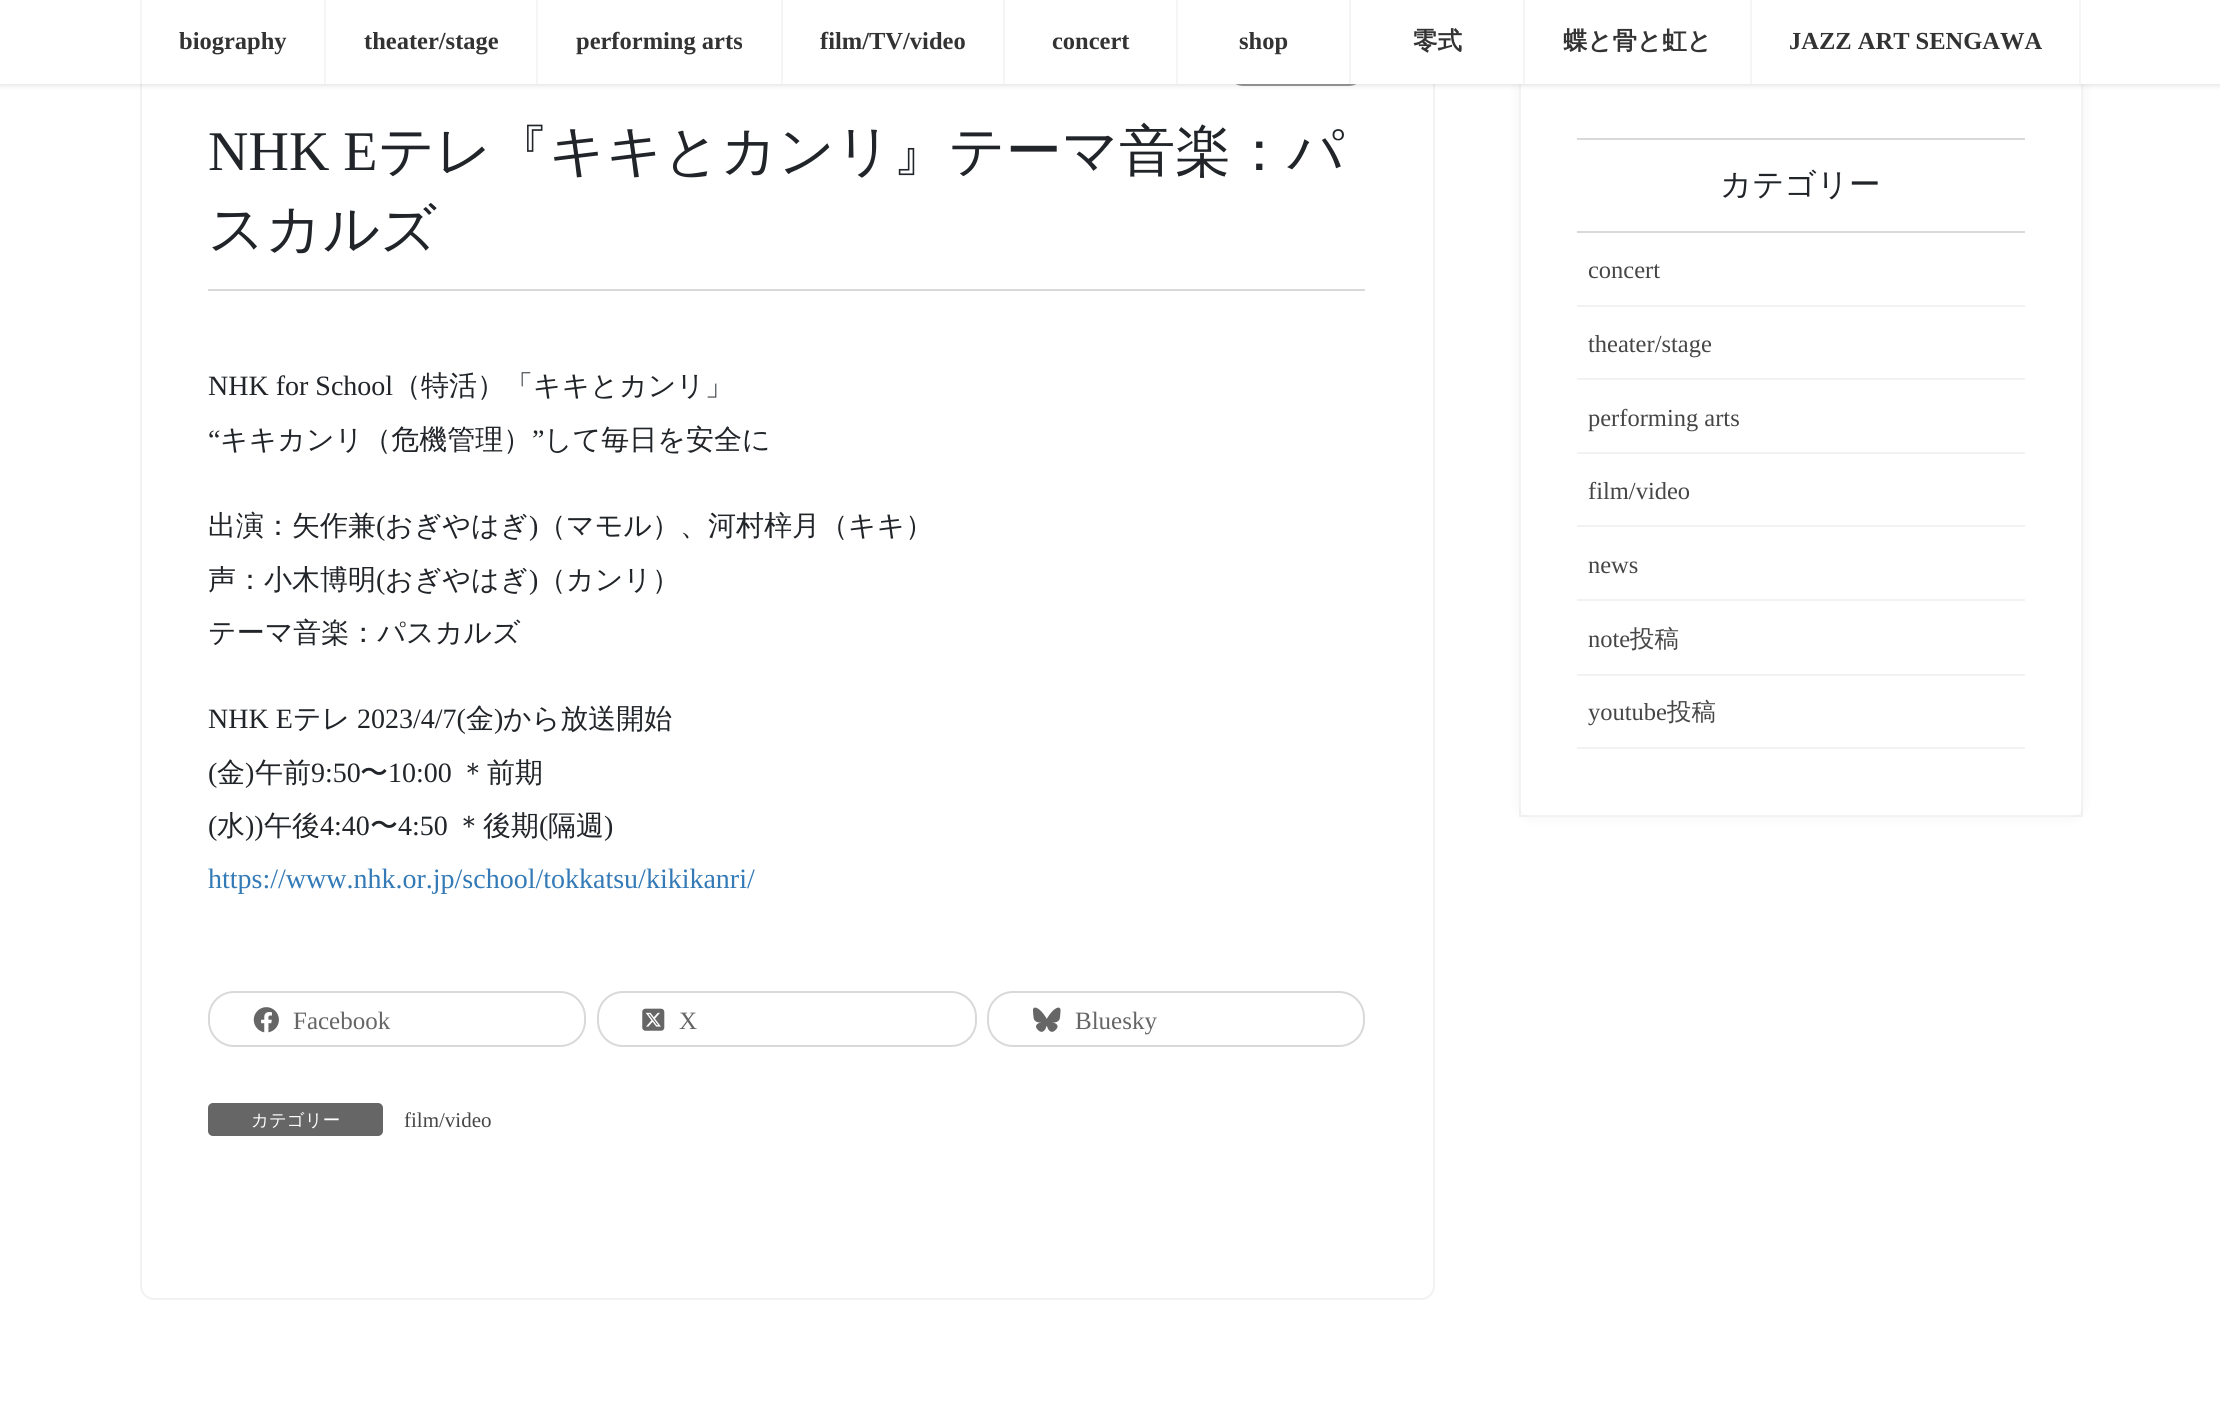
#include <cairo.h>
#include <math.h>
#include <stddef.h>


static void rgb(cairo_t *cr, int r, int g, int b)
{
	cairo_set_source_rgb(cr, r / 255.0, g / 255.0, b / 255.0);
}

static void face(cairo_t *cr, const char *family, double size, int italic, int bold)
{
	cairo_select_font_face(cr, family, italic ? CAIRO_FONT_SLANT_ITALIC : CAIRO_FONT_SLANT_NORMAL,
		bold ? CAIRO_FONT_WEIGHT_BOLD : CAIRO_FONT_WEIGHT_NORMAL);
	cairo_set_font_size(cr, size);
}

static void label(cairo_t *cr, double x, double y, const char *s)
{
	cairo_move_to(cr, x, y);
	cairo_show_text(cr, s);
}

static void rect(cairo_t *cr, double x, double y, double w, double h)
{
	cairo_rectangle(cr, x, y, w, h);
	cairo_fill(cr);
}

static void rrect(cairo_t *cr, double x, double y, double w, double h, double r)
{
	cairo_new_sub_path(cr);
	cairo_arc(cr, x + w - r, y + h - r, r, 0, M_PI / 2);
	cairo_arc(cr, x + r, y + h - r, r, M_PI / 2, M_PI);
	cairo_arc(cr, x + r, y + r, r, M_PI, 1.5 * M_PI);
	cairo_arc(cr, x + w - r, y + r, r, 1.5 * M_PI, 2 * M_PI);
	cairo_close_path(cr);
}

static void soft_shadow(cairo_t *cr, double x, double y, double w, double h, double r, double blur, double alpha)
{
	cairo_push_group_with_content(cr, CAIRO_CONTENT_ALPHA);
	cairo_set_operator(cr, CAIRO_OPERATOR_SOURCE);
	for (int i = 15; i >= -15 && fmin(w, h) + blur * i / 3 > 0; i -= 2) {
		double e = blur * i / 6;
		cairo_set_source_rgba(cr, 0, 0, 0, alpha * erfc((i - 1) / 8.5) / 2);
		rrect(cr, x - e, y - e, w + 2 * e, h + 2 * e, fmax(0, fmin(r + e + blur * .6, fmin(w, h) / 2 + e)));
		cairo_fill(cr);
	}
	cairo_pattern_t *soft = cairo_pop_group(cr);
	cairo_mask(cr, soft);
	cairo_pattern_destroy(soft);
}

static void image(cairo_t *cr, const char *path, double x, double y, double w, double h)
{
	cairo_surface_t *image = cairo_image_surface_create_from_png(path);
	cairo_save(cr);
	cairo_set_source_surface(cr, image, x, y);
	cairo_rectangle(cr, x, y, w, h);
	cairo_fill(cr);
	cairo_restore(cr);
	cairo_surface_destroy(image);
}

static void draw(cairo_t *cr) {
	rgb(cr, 255, 255, 255);
	cairo_paint(cr);
	rrect(cr, 141, -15, 1293, 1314, 13);
	rgb(cr, 242, 242, 242);
	cairo_stroke(cr);
	rgb(cr, 153, 153, 153);
	rrect(cr, 1227, 53, 138, 33, 16.5);
	cairo_fill(cr);
	rgb(cr, 0, 0, 0);
	soft_shadow(cr, 1519, 70, 564, 747, 14, 6, 0.05);
	rgb(cr, 255, 255, 255);
	rrect(cr, 1519, 70, 564, 747, 14);
	cairo_fill(cr);
	cairo_rectangle(cr, 1520, 71, 562, 745);
	cairo_set_source_rgba(cr, 0, 0, 0, 0.05);
	cairo_stroke(cr);
	rgb(cr, 0, 0, 0);
	soft_shadow(cr, 0, 2, 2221, 84, 0, 2.5, 0.1);
	rgb(cr, 255, 255, 255);
	rect(cr, 0, 0, 2220, 84);
	rgb(cr, 245, 245, 245);
	rect(cr, 140, 0, 2, 84);
	face(cr, "Liberation Serif", 24.5, 0, 1);
	rgb(cr, 51, 51, 51);
	label(cr, 179, 49, "biography");
	rgb(cr, 245, 245, 245);
	rect(cr, 324, 0, 2, 84);
	rgb(cr, 51, 51, 51);
	label(cr, 364, 49, "theater/stage");
	rgb(cr, 245, 245, 245);
	rect(cr, 536, 0, 2, 84);
	rgb(cr, 51, 51, 51);
	label(cr, 576, 49, "performing arts");
	rgb(cr, 245, 245, 245);
	rect(cr, 781, 0, 2, 84);
	rgb(cr, 51, 51, 51);
	label(cr, 820, 49, "film/TV/video");
	rgb(cr, 245, 245, 245);
	rect(cr, 1003, 0, 2, 84);
	rgb(cr, 51, 51, 51);
	label(cr, 1052, 49, "concert");
	rgb(cr, 245, 245, 245);
	rect(cr, 1176, 0, 2, 84);
	rgb(cr, 51, 51, 51);
	label(cr, 1239, 49, "shop");
	rgb(cr, 245, 245, 245);
	rect(cr, 1349, 0, 2, 84);
	face(cr, "WenQuanYi Zen Hei", 24.5, 0, 1);
	rgb(cr, 51, 51, 51);
	label(cr, 1413, 49, "零式");
	rgb(cr, 245, 245, 245);
	rect(cr, 1523, 0, 2, 84);
	rgb(cr, 51, 51, 51);
	label(cr, 1563, 49, "蝶と骨と虹と");
	rgb(cr, 245, 245, 245);
	rect(cr, 2079, 0, 2, 84);
	rect(cr, 1750, 0, 2, 84);
	face(cr, "Liberation Serif", 24.5, 0, 1);
	rgb(cr, 51, 51, 51);
	label(cr, 1789, 49, "JAZZ ART SENGAWA");
	rgb(cr, 217, 217, 217);
	rect(cr, 208, 289, 1157, 2);
	face(cr, "Liberation Serif", 56, 0, 0);
	rgb(cr, 33, 37, 41);
	label(cr, 208, 170, "NHK E");
	face(cr, "WenQuanYi Zen Hei Medium", 56, 0, 0);
	label(cr, 378, 170, "テレ『キキとカンリ』テーマ音楽：パ");
	label(cr, 208, 248, "スカルズ");
	face(cr, "Liberation Serif", 28, 0, 0);
	label(cr, 208, 395, "NHK for School");
	face(cr, "WenQuanYi Zen Hei Medium", 28, 0, 0);
	label(cr, 393, 395, "（特活）「キキとカンリ」");
	face(cr, "Liberation Serif", 28, 0, 0);
	label(cr, 208, 449, "“");
	face(cr, "WenQuanYi Zen Hei Medium", 28, 0, 0);
	label(cr, 220, 449, "キキカンリ（危機管理）");
	face(cr, "Liberation Serif", 28, 0, 0);
	label(cr, 532, 449, "”");
	face(cr, "WenQuanYi Zen Hei Medium", 28, 0, 0);
	label(cr, 544, 449, "して毎日を安全に");
	label(cr, 208, 535, "出演：矢作兼");
	face(cr, "Liberation Serif", 28, 0, 0);
	label(cr, 376, 535, "(");
	face(cr, "WenQuanYi Zen Hei Medium", 28, 0, 0);
	label(cr, 385, 535, "おぎやはぎ");
	face(cr, "Liberation Serif", 28, 0, 0);
	label(cr, 529, 535, ")");
	face(cr, "WenQuanYi Zen Hei Medium", 28, 0, 0);
	label(cr, 538, 535, "（マモル）、河村梓月（キキ）");
	label(cr, 208, 589, "声：小木博明");
	face(cr, "Liberation Serif", 28, 0, 0);
	label(cr, 376, 589, "(");
	face(cr, "WenQuanYi Zen Hei Medium", 28, 0, 0);
	label(cr, 385, 589, "おぎやはぎ");
	face(cr, "Liberation Serif", 28, 0, 0);
	label(cr, 529, 589, ")");
	face(cr, "WenQuanYi Zen Hei Medium", 28, 0, 0);
	label(cr, 538, 589, "（カンリ）");
	label(cr, 208, 642, "テーマ音楽：パスカルズ");
	face(cr, "Liberation Serif", 28, 0, 0);
	label(cr, 208, 728, "NHK E");
	face(cr, "WenQuanYi Zen Hei Medium", 28, 0, 0);
	label(cr, 293, 728, "テレ");
	face(cr, "Liberation Serif", 28, 0, 0);
	label(cr, 357, 728, "2023/4/7(");
	face(cr, "WenQuanYi Zen Hei Medium", 28, 0, 0);
	label(cr, 466, 728, "金");
	face(cr, "Liberation Serif", 28, 0, 0);
	label(cr, 494, 728, ")");
	face(cr, "WenQuanYi Zen Hei Medium", 28, 0, 0);
	label(cr, 503, 728, "から放送開始");
	face(cr, "Liberation Serif", 28, 0, 0);
	label(cr, 208, 782, "(");
	face(cr, "WenQuanYi Zen Hei Medium", 28, 0, 0);
	label(cr, 217, 782, "金");
	face(cr, "Liberation Serif", 28, 0, 0);
	label(cr, 245, 782, ")");
	face(cr, "WenQuanYi Zen Hei Medium", 28, 0, 0);
	label(cr, 255, 782, "午前");
	face(cr, "Liberation Serif", 28, 0, 0);
	label(cr, 311, 782, "9:50");
	face(cr, "WenQuanYi Zen Hei Medium", 28, 0, 0);
	label(cr, 360, 782, "〜");
	face(cr, "Liberation Serif", 28, 0, 0);
	label(cr, 388, 782, "10:00");
	face(cr, "WenQuanYi Zen Hei Medium", 28, 0, 0);
	label(cr, 459, 782, "＊前期");
	face(cr, "Liberation Serif", 28, 0, 0);
	label(cr, 208, 835, "(");
	face(cr, "WenQuanYi Zen Hei Medium", 28, 0, 0);
	label(cr, 217, 835, "水");
	face(cr, "Liberation Serif", 28, 0, 0);
	label(cr, 245, 835, "))");
	face(cr, "WenQuanYi Zen Hei Medium", 28, 0, 0);
	label(cr, 264, 835, "午後");
	face(cr, "Liberation Serif", 28, 0, 0);
	label(cr, 320, 835, "4:40");
	face(cr, "WenQuanYi Zen Hei Medium", 28, 0, 0);
	label(cr, 370, 835, "〜");
	face(cr, "Liberation Serif", 28, 0, 0);
	label(cr, 398, 835, "4:50");
	face(cr, "WenQuanYi Zen Hei Medium", 28, 0, 0);
	label(cr, 455, 835, "＊後期");
	face(cr, "Liberation Serif", 28, 0, 0);
	label(cr, 539, 835, "(");
	face(cr, "WenQuanYi Zen Hei Medium", 28, 0, 0);
	label(cr, 548, 835, "隔週");
	face(cr, "Liberation Serif", 28, 0, 0);
	label(cr, 604, 835, ")");
	rgb(cr, 51, 122, 183);
	label(cr, 208, 888, "https://www.nhk.or.jp/school/tokkatsu/kikikanri/");
	rrect(cr, 209, 992, 376, 54, 25);
	rgb(cr, 217, 217, 217);
	cairo_stroke(cr);
	image(cr, "image0.png", 253, 1007, 26, 26);
	face(cr, "Liberation Serif", 25, 0, 0);
	rgb(cr, 102, 102, 102);
	label(cr, 293, 1029, "Facebook");
	rrect(cr, 598, 992, 378, 54, 25);
	rgb(cr, 217, 217, 217);
	cairo_stroke(cr);
	image(cr, "image1.png", 642, 1008, 23, 23);
	rgb(cr, 102, 102, 102);
	label(cr, 679, 1029, "X");
	rrect(cr, 988, 992, 376, 54, 25);
	rgb(cr, 217, 217, 217);
	cairo_stroke(cr);
	image(cr, "image2.png", 1033, 1007, 28, 25);
	rgb(cr, 102, 102, 102);
	label(cr, 1075, 1029, "Bluesky");
	rrect(cr, 208, 1103, 175, 33, 5);
	cairo_fill(cr);
	face(cr, "WenQuanYi Zen Hei Medium", 17.5, 0, 0);
	rgb(cr, 255, 255, 255);
	label(cr, 251, 1126, "カテゴリー");
	face(cr, "Liberation Serif", 21, 0, 0);
	rgb(cr, 70, 70, 70);
	label(cr, 404, 1127, "film/video");
	rgb(cr, 217, 217, 217);
	rect(cr, 1577, 138, 448, 2);
	rect(cr, 1577, 231, 448, 2);
	face(cr, "WenQuanYi Zen Hei Medium", 31.5, 0, 0);
	rgb(cr, 33, 37, 41);
	label(cr, 1720, 195, "カテゴリー");
	rgb(cr, 242, 242, 242);
	rect(cr, 1577, 305, 448, 2);
	face(cr, "Liberation Serif", 24.5, 0, 0);
	rgb(cr, 70, 70, 70);
	label(cr, 1588, 278, "concert");
	rgb(cr, 242, 242, 242);
	rect(cr, 1577, 378, 448, 2);
	rgb(cr, 70, 70, 70);
	label(cr, 1588, 352, "theater/stage");
	rgb(cr, 242, 242, 242);
	rect(cr, 1577, 452, 448, 2);
	rgb(cr, 70, 70, 70);
	label(cr, 1588, 426, "performing arts");
	rgb(cr, 242, 242, 242);
	rect(cr, 1577, 525, 448, 2);
	rgb(cr, 70, 70, 70);
	label(cr, 1588, 499, "film/video");
	rgb(cr, 242, 242, 242);
	rect(cr, 1577, 599, 448, 2);
	rgb(cr, 70, 70, 70);
	label(cr, 1588, 573, "news");
	rgb(cr, 242, 242, 242);
	rect(cr, 1577, 674, 448, 2);
	rgb(cr, 70, 70, 70);
	label(cr, 1588, 647, "note");
	face(cr, "WenQuanYi Zen Hei Medium", 24.5, 0, 0);
	label(cr, 1630, 647, "投稿");
	rgb(cr, 242, 242, 242);
	rect(cr, 1577, 747, 448, 2);
	face(cr, "Liberation Serif", 24.5, 0, 0);
	rgb(cr, 70, 70, 70);
	label(cr, 1588, 720, "youtube");
	face(cr, "WenQuanYi Zen Hei Medium", 24.5, 0, 0);
	label(cr, 1667, 720, "投稿");
}

int main(void) {
	cairo_surface_t *surface = cairo_image_surface_create(CAIRO_FORMAT_RGB24, 2220, 1423);
	cairo_t *cr = cairo_create(surface);
	cairo_font_options_t *options = cairo_font_options_create();
	cairo_font_options_set_hint_metrics(options, CAIRO_HINT_METRICS_OFF);
	cairo_font_options_set_hint_style(options, CAIRO_HINT_STYLE_NONE);
	cairo_set_font_options(cr, options);
	cairo_set_miter_limit(cr, 4);
	draw(cr);
	cairo_surface_write_to_png(surface, "render.png");
	cairo_font_options_destroy(options);
	cairo_destroy(cr);
	cairo_surface_destroy(surface);
	return 0;
}
